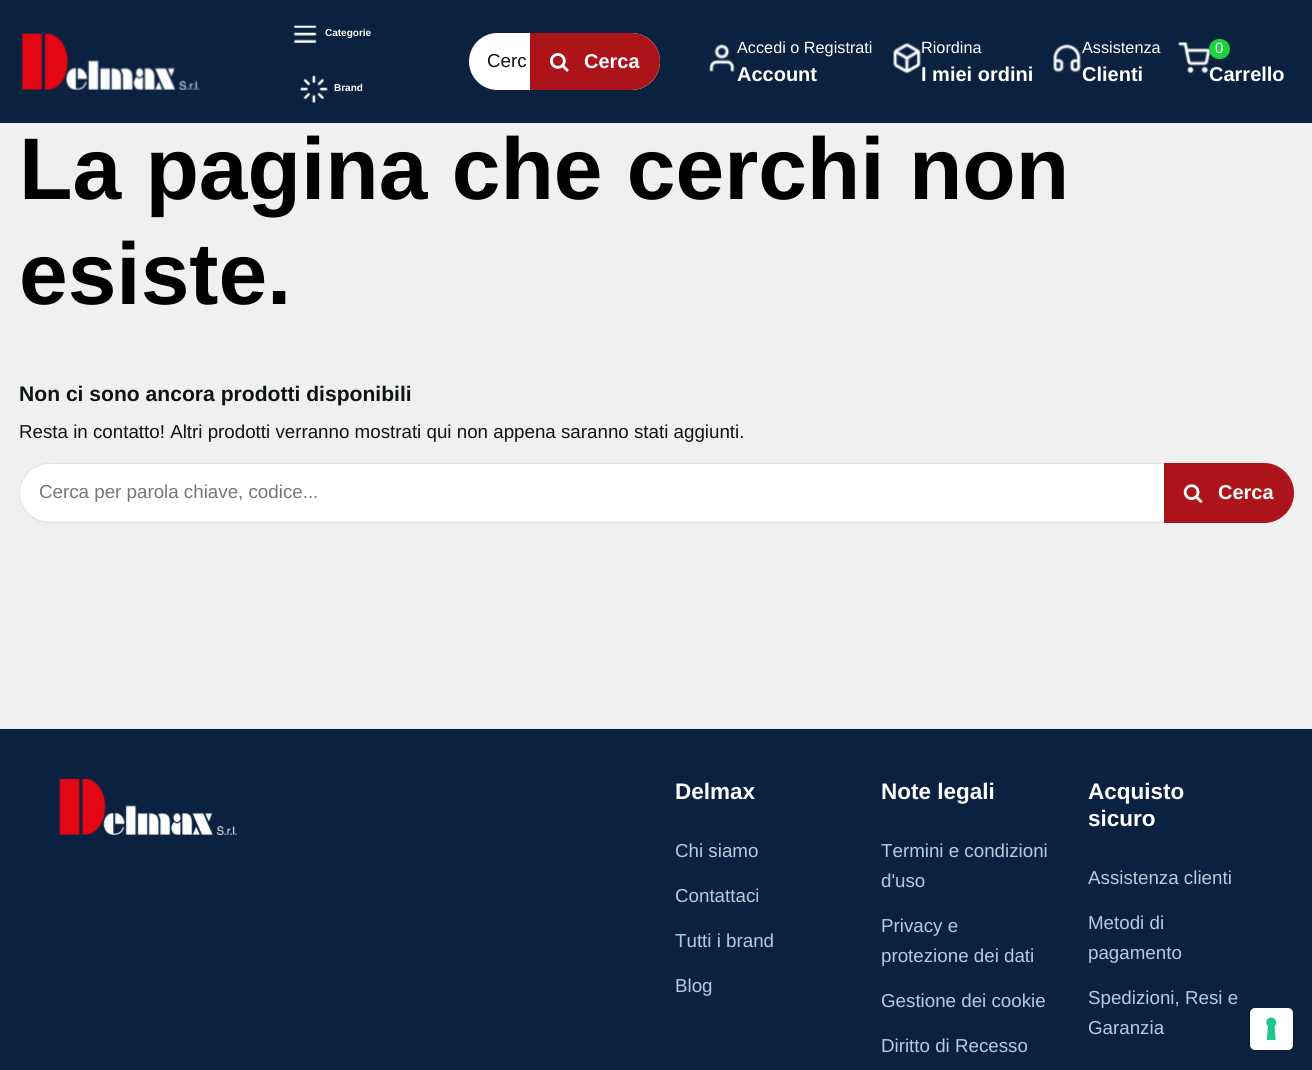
#include <cairo.h>
#include <math.h>
#include <stddef.h>


static void rgb(cairo_t *cr, int r, int g, int b)
{
	cairo_set_source_rgb(cr, r / 255.0, g / 255.0, b / 255.0);
}

static void face(cairo_t *cr, const char *family, double size, int italic, int bold)
{
	cairo_select_font_face(cr, family, italic ? CAIRO_FONT_SLANT_ITALIC : CAIRO_FONT_SLANT_NORMAL,
		bold ? CAIRO_FONT_WEIGHT_BOLD : CAIRO_FONT_WEIGHT_NORMAL);
	cairo_set_font_size(cr, size);
}

static void label(cairo_t *cr, double x, double y, const char *s)
{
	cairo_move_to(cr, x, y);
	cairo_show_text(cr, s);
}

static void rect(cairo_t *cr, double x, double y, double w, double h)
{
	cairo_rectangle(cr, x, y, w, h);
	cairo_fill(cr);
}

static void rrect(cairo_t *cr, double x, double y, double w, double h, double r)
{
	cairo_new_sub_path(cr);
	cairo_arc(cr, x + w - r, y + h - r, r, 0, M_PI / 2);
	cairo_arc(cr, x + r, y + h - r, r, M_PI / 2, M_PI);
	cairo_arc(cr, x + r, y + r, r, M_PI, 1.5 * M_PI);
	cairo_arc(cr, x + w - r, y + r, r, 1.5 * M_PI, 2 * M_PI);
	cairo_close_path(cr);
}

static void image(cairo_t *cr, const char *path, double x, double y, double w, double h)
{
	cairo_surface_t *image = cairo_image_surface_create_from_png(path);
	cairo_save(cr);
	cairo_set_source_surface(cr, image, x, y);
	cairo_rectangle(cr, x, y, w, h);
	cairo_fill(cr);
	cairo_restore(cr);
	cairo_surface_destroy(image);
}

static void draw(cairo_t *cr) {
	rgb(cr, 240, 240, 240);
	cairo_paint(cr);
	rgb(cr, 10, 34, 64);
	rect(cr, 0, 0, 1312, 123);
	image(cr, "image0.png", 21, 33, 179, 57);
	image(cr, "image1.png", 293, 25, 24, 18);
	face(cr, "Liberation Sans", 10, 0, 1);
	rgb(cr, 255, 255, 255);
	label(cr, 325, 36, "Categorie");
	image(cr, "image2.png", 299, 75, 29, 28);
	label(cr, 334, 91, "Brand");
	rrect(cr, 469, 33, 191, 57, 28.5);
	cairo_fill(cr);
	cairo_save(cr);
	cairo_rectangle(cr, 488, 50, 135, 21);
	cairo_clip(cr);
	face(cr, "Liberation Sans", 18.75, 0, 0);
	rgb(cr, 14, 21, 14);
	label(cr, 487, 67, "Cerc");
	cairo_restore(cr);
	rgb(cr, 172, 20, 26);
	cairo_new_path(cr);
	cairo_move_to(cr, 530, 33);
	cairo_line_to(cr, 631.5, 33);
	cairo_curve_to(cr, 647, 33, 660, 46, 660, 61.5);
	cairo_curve_to(cr, 660, 77, 647, 90, 631.5, 90);
	cairo_line_to(cr, 530, 90);
	cairo_close_path(cr);
	cairo_fill(cr);
	image(cr, "image3.png", 550, 53, 19, 19);
	face(cr, "Liberation Sans", 20, 0, 1);
	rgb(cr, 255, 255, 255);
	label(cr, 584, 68, "Cerca");
	image(cr, "image4.png", 709, 44, 26, 29);
	face(cr, "Liberation Sans", 16.25, 0, 0);
	label(cr, 737, 53, "Accedi o Registrati");
	face(cr, "Liberation Sans", 20, 0, 1);
	label(cr, 737, 81, "Account");
	image(cr, "image5.png", 893, 43, 29, 31);
	face(cr, "Liberation Sans", 16.25, 0, 0);
	label(cr, 921, 53, "Riordina");
	face(cr, "Liberation Sans", 20, 0, 1);
	label(cr, 921, 81, "I miei ordini");
	face(cr, "Liberation Sans", 16.25, 0, 0);
	label(cr, 1082, 53, "Assistenza");
	image(cr, "image6.png", 1053, 44, 29, 29);
	face(cr, "Liberation Sans", 20, 0, 1);
	label(cr, 1082, 81, "Clienti");
	label(cr, 1209, 81, "Carrello");
	image(cr, "image7.png", 1178, 42, 33, 32);
	rgb(cr, 27, 211, 63);
	rrect(cr, 1209, 39, 21, 20, 10);
	cairo_fill(cr);
	face(cr, "Liberation Sans", 15, 0, 0);
	rgb(cr, 255, 255, 255);
	label(cr, 1215, 53, "0");
	face(cr, "Liberation Sans", 87.5, 0, 1);
	rgb(cr, 0, 0, 0);
	label(cr, 19, 199, "La pagina che cerchi non");
	label(cr, 19, 304, "esiste.");
	face(cr, "Liberation Sans", 21.1, 0, 1);
	rgb(cr, 14, 21, 14);
	label(cr, 19, 401, "Non ci sono ancora prodotti disponibili");
	face(cr, "Liberation Sans", 18.75, 0, 0);
	label(cr, 19, 438, "Resta in contatto! Altri prodotti verranno mostrati qui non appena saranno stati aggiunti.");
	rgb(cr, 255, 255, 255);
	rrect(cr, 20, 464, 1273, 57, 28.5);
	cairo_fill(cr);
	rrect(cr, 19.5, 463.5, 1274, 59, 29.5);
	rgb(cr, 227, 227, 227);
	cairo_set_line_width(cr, 1);
	cairo_stroke(cr);
	rgb(cr, 119, 119, 119);
	label(cr, 39, 498, "Cerca per parola chiave, codice...");
	rgb(cr, 172, 20, 26);
	cairo_new_path(cr);
	cairo_move_to(cr, 1164, 463);
	cairo_line_to(cr, 1264, 463);
	cairo_curve_to(cr, 1280.5, 463, 1294, 476.5, 1294, 493);
	cairo_curve_to(cr, 1294, 509.5, 1280.5, 523, 1264, 523);
	cairo_line_to(cr, 1164, 523);
	cairo_close_path(cr);
	cairo_fill(cr);
	image(cr, "image8.png", 1183, 484, 20, 19);
	face(cr, "Liberation Sans", 20, 0, 1);
	rgb(cr, 255, 255, 255);
	label(cr, 1218, 499, "Cerca");
	rgb(cr, 10, 34, 64);
	rect(cr, 0, 729, 1312, 341);
	image(cr, "image9.png", 59, 779, 178, 56);
	face(cr, "Liberation Sans", 22.5, 0, 1);
	rgb(cr, 255, 255, 255);
	label(cr, 675, 799, "Delmax");
	face(cr, "Liberation Sans", 18.75, 0, 0);
	rgb(cr, 186, 202, 221);
	label(cr, 675, 857, "Chi siamo");
	label(cr, 675, 902, "Contattaci");
	label(cr, 675, 947, "Tutti i brand");
	label(cr, 675, 992, "Blog");
	face(cr, "Liberation Sans", 22.5, 0, 1);
	rgb(cr, 255, 255, 255);
	label(cr, 881, 799, "Note legali");
	face(cr, "Liberation Sans", 18.75, 0, 0);
	rgb(cr, 186, 202, 221);
	label(cr, 881, 857, "Termini e condizioni");
	label(cr, 881, 887, "d'uso");
	label(cr, 881, 932, "Privacy e");
	label(cr, 881, 962, "protezione dei dati");
	label(cr, 881, 1007, "Gestione dei cookie");
	label(cr, 881, 1052, "Diritto di Recesso");
	face(cr, "Liberation Sans", 22.5, 0, 1);
	rgb(cr, 255, 255, 255);
	label(cr, 1088, 799, "Acquisto");
	label(cr, 1088, 826, "sicuro");
	face(cr, "Liberation Sans", 18.75, 0, 0);
	rgb(cr, 186, 202, 221);
	label(cr, 1088, 884, "Assistenza clienti");
	label(cr, 1088, 929, "Metodi di");
	label(cr, 1088, 959, "pagamento");
	label(cr, 1088, 1004, "Spedizioni, Resi e");
	label(cr, 1088, 1034, "Garanzia");
	rrect(cr, 1249.5, 1006.5, 44, 44, 5.5);
	rgb(cr, 9, 29, 54);
	cairo_stroke(cr);
	rgb(cr, 255, 255, 255);
	rrect(cr, 1250, 1008, 43, 42, 5);
	cairo_fill(cr);
	image(cr, "image10.png", 1266, 1017, 11, 23);
}

int main(void) {
	cairo_surface_t *surface = cairo_image_surface_create(CAIRO_FORMAT_RGB24, 1312, 1070);
	cairo_t *cr = cairo_create(surface);
	cairo_font_options_t *options = cairo_font_options_create();
	cairo_font_options_set_hint_metrics(options, CAIRO_HINT_METRICS_OFF);
	cairo_font_options_set_hint_style(options, CAIRO_HINT_STYLE_NONE);
	cairo_set_font_options(cr, options);
	cairo_set_miter_limit(cr, 4);
	draw(cr);
	cairo_surface_write_to_png(surface, "render.png");
	cairo_font_options_destroy(options);
	cairo_destroy(cr);
	cairo_surface_destroy(surface);
	return 0;
}
